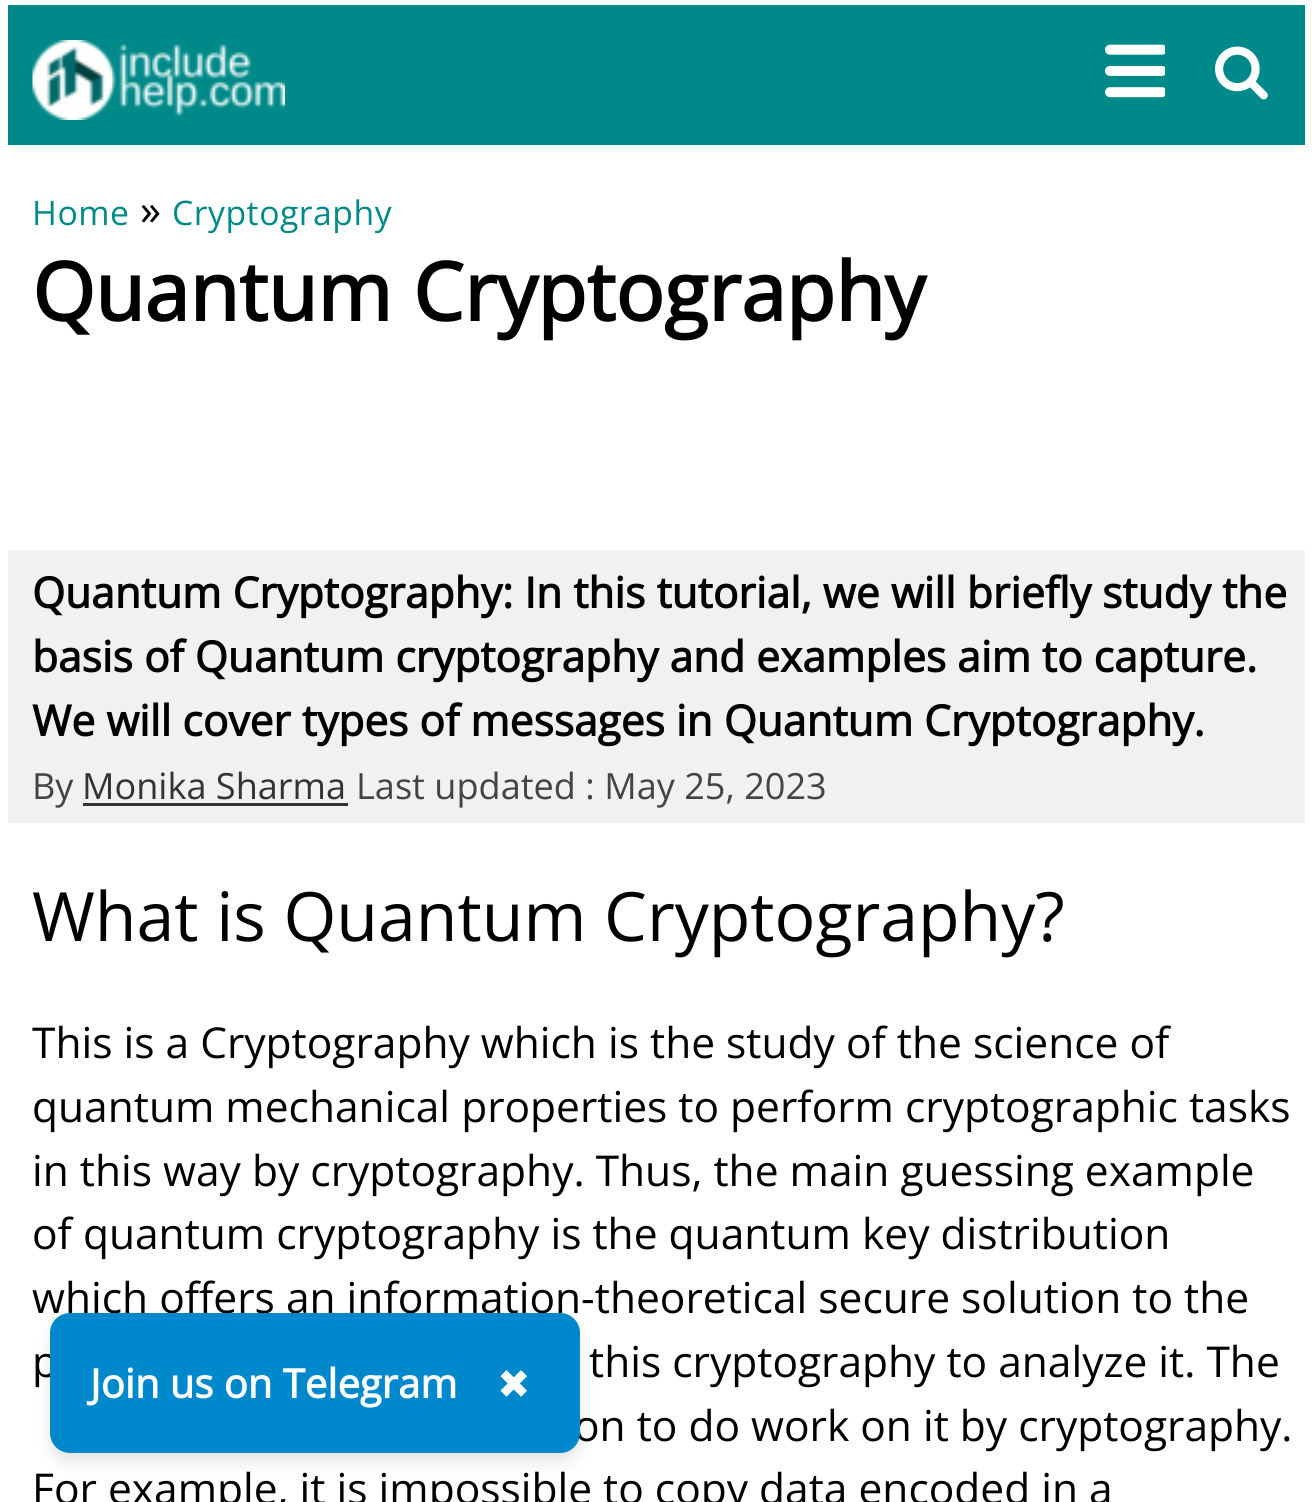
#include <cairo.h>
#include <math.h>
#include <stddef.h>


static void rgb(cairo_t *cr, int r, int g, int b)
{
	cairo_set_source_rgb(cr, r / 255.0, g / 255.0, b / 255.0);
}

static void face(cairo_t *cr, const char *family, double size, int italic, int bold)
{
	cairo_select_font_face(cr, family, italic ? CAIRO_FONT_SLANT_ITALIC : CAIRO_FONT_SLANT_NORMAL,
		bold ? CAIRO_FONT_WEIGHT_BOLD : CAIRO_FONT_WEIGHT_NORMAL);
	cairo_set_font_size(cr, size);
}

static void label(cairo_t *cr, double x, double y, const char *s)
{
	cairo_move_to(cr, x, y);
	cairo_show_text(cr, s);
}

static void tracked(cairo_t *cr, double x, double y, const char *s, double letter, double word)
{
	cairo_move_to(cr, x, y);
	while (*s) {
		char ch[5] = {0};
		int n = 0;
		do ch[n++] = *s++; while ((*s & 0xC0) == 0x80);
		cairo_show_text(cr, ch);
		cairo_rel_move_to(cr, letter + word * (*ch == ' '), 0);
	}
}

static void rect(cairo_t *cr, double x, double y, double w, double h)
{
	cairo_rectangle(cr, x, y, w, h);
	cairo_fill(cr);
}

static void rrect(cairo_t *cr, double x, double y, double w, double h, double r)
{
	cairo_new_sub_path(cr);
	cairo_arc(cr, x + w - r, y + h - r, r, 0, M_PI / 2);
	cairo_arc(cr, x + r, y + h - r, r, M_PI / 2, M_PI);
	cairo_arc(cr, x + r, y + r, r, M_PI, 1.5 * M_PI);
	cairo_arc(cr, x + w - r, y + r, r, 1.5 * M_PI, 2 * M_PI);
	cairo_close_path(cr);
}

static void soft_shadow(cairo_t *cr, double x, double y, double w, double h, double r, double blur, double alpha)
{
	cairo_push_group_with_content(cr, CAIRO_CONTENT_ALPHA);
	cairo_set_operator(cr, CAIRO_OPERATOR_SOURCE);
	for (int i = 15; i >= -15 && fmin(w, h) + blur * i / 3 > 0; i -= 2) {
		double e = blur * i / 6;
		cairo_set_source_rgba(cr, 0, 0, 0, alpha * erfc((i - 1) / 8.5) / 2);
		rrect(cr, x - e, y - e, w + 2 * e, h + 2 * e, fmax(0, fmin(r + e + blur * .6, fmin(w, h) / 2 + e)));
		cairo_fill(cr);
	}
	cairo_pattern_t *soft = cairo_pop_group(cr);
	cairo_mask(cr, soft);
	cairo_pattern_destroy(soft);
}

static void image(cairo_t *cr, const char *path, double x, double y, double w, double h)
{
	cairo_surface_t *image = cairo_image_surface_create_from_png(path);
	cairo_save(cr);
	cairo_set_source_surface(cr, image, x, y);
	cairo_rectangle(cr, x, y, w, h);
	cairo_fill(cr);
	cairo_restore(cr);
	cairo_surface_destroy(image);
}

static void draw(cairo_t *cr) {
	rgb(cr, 255, 255, 255);
	cairo_paint(cr);
	rgb(cr, 0, 137, 137);
	rect(cr, 8, 5, 1297, 140);
	image(cr, "image0.png", 32, 40, 253, 80);
	image(cr, "image1.png", 1105, 44, 60, 54);
	image(cr, "image2.png", 1215, 46, 53, 54);
	face(cr, "Open Sans", 33.75, 0, 0);
	tracked(cr, 32, 225, "Home", 0.5, 0);
	face(cr, "Open Sans", 42.5, 0, 0);
	rgb(cr, 0, 0, 0);
	label(cr, 140, 225, "»");
	face(cr, "Open Sans", 33.75, 0, 0);
	rgb(cr, 0, 137, 137);
	tracked(cr, 172, 225, "Cryptography", 0.5, 0);
	face(cr, "Open Sans", 80.75, 0, 1);
	rgb(cr, 0, 0, 0);
	label(cr, 32, 321, "Quantum Cryptography");
	rgb(cr, 241, 241, 241);
	rect(cr, 8, 550, 1297, 273);
	face(cr, "Open Sans", 42.5, 0, 1);
	rgb(cr, 0, 0, 0);
	label(cr, 32, 608, "Quantum Cryptography: In this tutorial, we will briefly study the");
	label(cr, 32, 672, "basis of Quantum cryptography and examples aim to capture.");
	label(cr, 32, 736, "We will cover types of messages in Quantum Cryptography.");
	face(cr, "Open Sans", 36.1, 0, 0);
	rgb(cr, 68, 68, 68);
	label(cr, 32, 799, "By");
	rgb(cr, 51, 51, 51);
	label(cr, 82, 799, "Monika Sharma");
	rect(cr, 83, 803, 265, 3);
	rgb(cr, 68, 68, 68);
	label(cr, 356, 799, "Last updated : May 25, 2023");
	face(cr, "Open Sans", 68, 0, 0);
	rgb(cr, 0, 0, 0);
	label(cr, 32, 941, "What is Quantum Cryptography?");
	face(cr, "Open Sans", 42.5, 0, 0);
	label(cr, 32, 1058, "This is a Cryptography which is the study of the science of");
	label(cr, 32, 1122, "quantum mechanical properties to perform cryptographic tasks");
	label(cr, 32, 1186, "in this way by cryptography. Thus, the main guessing example");
	label(cr, 32, 1249, "of quantum cryptography is the quantum key distribution");
	label(cr, 32, 1313, "which offers an information-theoretical secure solution to the");
	label(cr, 32, 1377, "p");
	label(cr, 589, 1377, "this cryptography to analyze it. The");
	label(cr, 574, 1441, "on to do work on it by cryptography.");
	label(cr, 32, 1504, "For example, it is impossible to copy data encoded in a");
	rgb(cr, 0, 0, 0);
	soft_shadow(cr, 50, 1323, 530, 140, 20, 7.5, 0.1);
	rgb(cr, 0, 136, 204);
	rrect(cr, 50, 1313, 530, 140, 20);
	cairo_fill(cr);
	face(cr, "Open Sans", 40, 0, 1);
	rgb(cr, 255, 255, 255);
	label(cr, 90, 1398, "Join us on Telegram");
	face(cr, "DejaVu Sans", 40, 0, 0);
	label(cr, 497, 1398, "✖");
}

int main(void) {
	cairo_surface_t *surface = cairo_image_surface_create(CAIRO_FORMAT_RGB24, 1312, 1502);
	cairo_t *cr = cairo_create(surface);
	cairo_font_options_t *options = cairo_font_options_create();
	cairo_font_options_set_hint_metrics(options, CAIRO_HINT_METRICS_OFF);
	cairo_font_options_set_hint_style(options, CAIRO_HINT_STYLE_NONE);
	cairo_set_font_options(cr, options);
	cairo_set_miter_limit(cr, 4);
	draw(cr);
	cairo_surface_write_to_png(surface, "render.png");
	cairo_font_options_destroy(options);
	cairo_destroy(cr);
	cairo_surface_destroy(surface);
	return 0;
}
